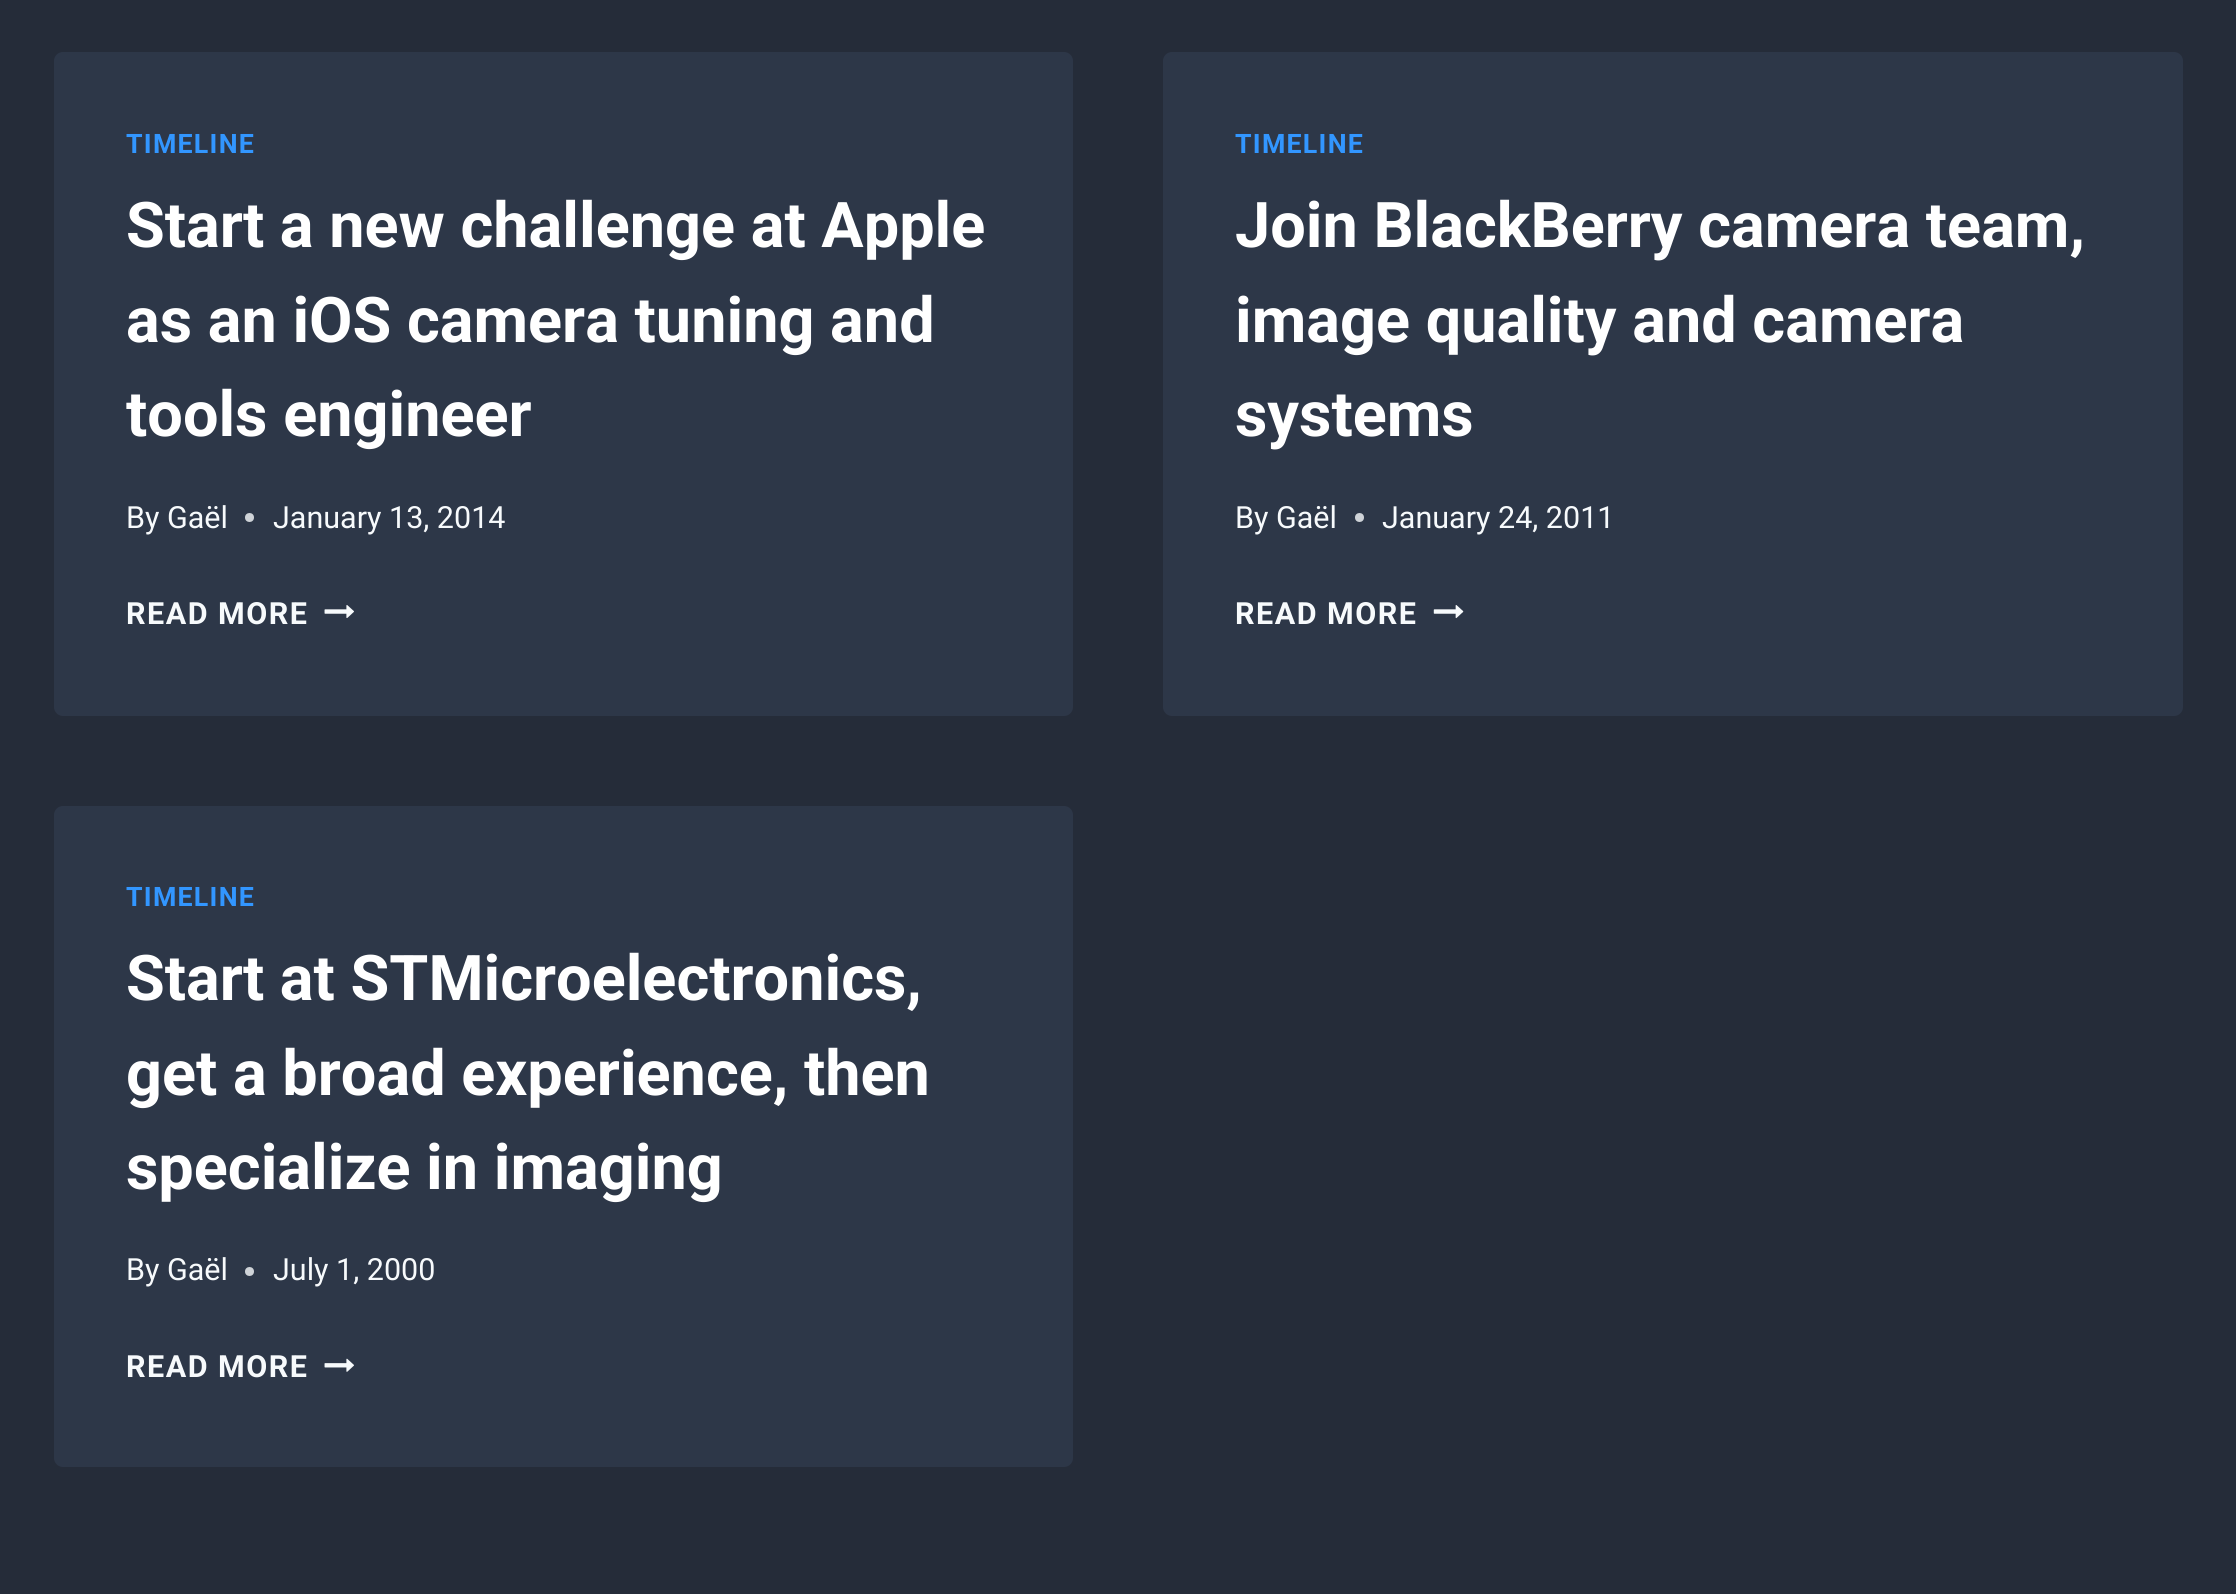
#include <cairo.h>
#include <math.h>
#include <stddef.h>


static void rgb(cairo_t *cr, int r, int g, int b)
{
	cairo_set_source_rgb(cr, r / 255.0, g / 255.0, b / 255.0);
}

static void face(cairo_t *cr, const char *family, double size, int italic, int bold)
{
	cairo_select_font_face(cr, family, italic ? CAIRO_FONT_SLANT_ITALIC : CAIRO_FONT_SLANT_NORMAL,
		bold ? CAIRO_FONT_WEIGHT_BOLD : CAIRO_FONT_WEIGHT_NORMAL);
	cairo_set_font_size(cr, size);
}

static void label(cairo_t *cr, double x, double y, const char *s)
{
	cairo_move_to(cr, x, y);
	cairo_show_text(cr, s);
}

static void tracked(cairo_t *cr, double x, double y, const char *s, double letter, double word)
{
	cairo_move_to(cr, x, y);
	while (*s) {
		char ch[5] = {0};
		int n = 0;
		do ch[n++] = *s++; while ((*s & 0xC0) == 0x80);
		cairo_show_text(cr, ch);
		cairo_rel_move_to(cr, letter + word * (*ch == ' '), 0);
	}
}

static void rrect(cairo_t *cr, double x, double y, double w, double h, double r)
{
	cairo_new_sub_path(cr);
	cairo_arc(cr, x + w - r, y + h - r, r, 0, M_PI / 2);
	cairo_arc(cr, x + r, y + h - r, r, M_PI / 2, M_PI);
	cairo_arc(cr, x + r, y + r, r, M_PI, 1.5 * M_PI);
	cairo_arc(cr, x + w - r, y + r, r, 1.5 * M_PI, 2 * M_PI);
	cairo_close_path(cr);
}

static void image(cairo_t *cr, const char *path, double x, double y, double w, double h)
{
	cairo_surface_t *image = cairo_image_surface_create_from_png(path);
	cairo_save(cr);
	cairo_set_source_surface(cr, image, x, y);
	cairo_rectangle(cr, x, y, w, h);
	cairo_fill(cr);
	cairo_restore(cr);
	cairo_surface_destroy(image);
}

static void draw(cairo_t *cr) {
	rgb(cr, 37, 44, 57);
	cairo_paint(cr);
	rgb(cr, 45, 55, 72);
	rrect(cr, 54, 52, 1019, 664, 9);
	cairo_fill(cr);
	face(cr, "Roboto", 26.75, 0, 1);
	rgb(cr, 50, 150, 255);
	tracked(cr, 126, 153, "TIMELINE", 1.25, 0);
	face(cr, "Roboto", 63, 0, 1);
	rgb(cr, 255, 255, 255);
	label(cr, 126, 247, "Start a new challenge at Apple");
	label(cr, 126, 342, "as an iOS camera tuning and");
	label(cr, 126, 436, "tools engineer");
	face(cr, "Roboto", 30.5, 0, 0);
	rgb(cr, 247, 250, 252);
	label(cr, 126, 528, "By");
	label(cr, 167, 528, "Gaël");
	rgb(cr, 207, 211, 216);
	cairo_new_path(cr);
	cairo_arc(cr, 249.5, 517.5, 4.5, 0, 2 * M_PI);
	cairo_fill(cr);
	rgb(cr, 247, 250, 252);
	label(cr, 273, 528, "January 13, 2014");
	face(cr, "Roboto", 30.5, 0, 1);
	tracked(cr, 126, 624, "READ MORE", 1.5, 0);
	image(cr, "image0.png", 324, 605, 30, 13);
	rgb(cr, 45, 55, 72);
	rrect(cr, 1163, 52, 1020, 664, 9);
	cairo_fill(cr);
	face(cr, "Roboto", 26.75, 0, 1);
	rgb(cr, 50, 150, 255);
	tracked(cr, 1235, 153, "TIMELINE", 1.25, 0);
	face(cr, "Roboto", 63, 0, 1);
	rgb(cr, 255, 255, 255);
	label(cr, 1235, 247, "Join BlackBerry camera team,");
	label(cr, 1235, 342, "image quality and camera");
	label(cr, 1235, 436, "systems");
	face(cr, "Roboto", 30.5, 0, 0);
	rgb(cr, 247, 250, 252);
	label(cr, 1235, 528, "By");
	label(cr, 1276, 528, "Gaël");
	rgb(cr, 207, 211, 216);
	cairo_new_path(cr);
	cairo_arc(cr, 1359.5, 517.5, 4.5, 0, 2 * M_PI);
	cairo_fill(cr);
	rgb(cr, 247, 250, 252);
	label(cr, 1382, 528, "January 24, 2011");
	face(cr, "Roboto", 30.5, 0, 1);
	tracked(cr, 1235, 624, "READ MORE", 1.5, 0);
	image(cr, "image1.png", 1433, 605, 31, 14);
	rgb(cr, 45, 55, 72);
	rrect(cr, 54, 806, 1019, 661, 9);
	cairo_fill(cr);
	face(cr, "Roboto", 26.75, 0, 1);
	rgb(cr, 50, 150, 255);
	tracked(cr, 126, 906, "TIMELINE", 1.25, 0);
	face(cr, "Roboto", 63, 0, 1);
	rgb(cr, 255, 255, 255);
	label(cr, 126, 1000, "Start at STMicroelectronics,");
	label(cr, 126, 1095, "get a broad experience, then");
	label(cr, 126, 1189, "specialize in imaging");
	face(cr, "Roboto", 30.5, 0, 0);
	rgb(cr, 247, 250, 252);
	label(cr, 126, 1280, "By");
	label(cr, 167, 1280, "Gaël");
	rgb(cr, 207, 211, 216);
	cairo_new_path(cr);
	cairo_arc(cr, 249.5, 1271.5, 4.5, 0, 2 * M_PI);
	cairo_fill(cr);
	rgb(cr, 247, 250, 252);
	label(cr, 273, 1280, "July 1, 2000");
	face(cr, "Roboto", 30.5, 0, 1);
	tracked(cr, 126, 1377, "READ MORE", 1.5, 0);
	image(cr, "image2.png", 324, 1358, 30, 14);
}

int main(void) {
	cairo_surface_t *surface = cairo_image_surface_create(CAIRO_FORMAT_RGB24, 2236, 1594);
	cairo_t *cr = cairo_create(surface);
	cairo_font_options_t *options = cairo_font_options_create();
	cairo_font_options_set_hint_metrics(options, CAIRO_HINT_METRICS_OFF);
	cairo_font_options_set_hint_style(options, CAIRO_HINT_STYLE_NONE);
	cairo_set_font_options(cr, options);
	cairo_set_miter_limit(cr, 4);
	draw(cr);
	cairo_surface_write_to_png(surface, "render.png");
	cairo_font_options_destroy(options);
	cairo_destroy(cr);
	cairo_surface_destroy(surface);
	return 0;
}
